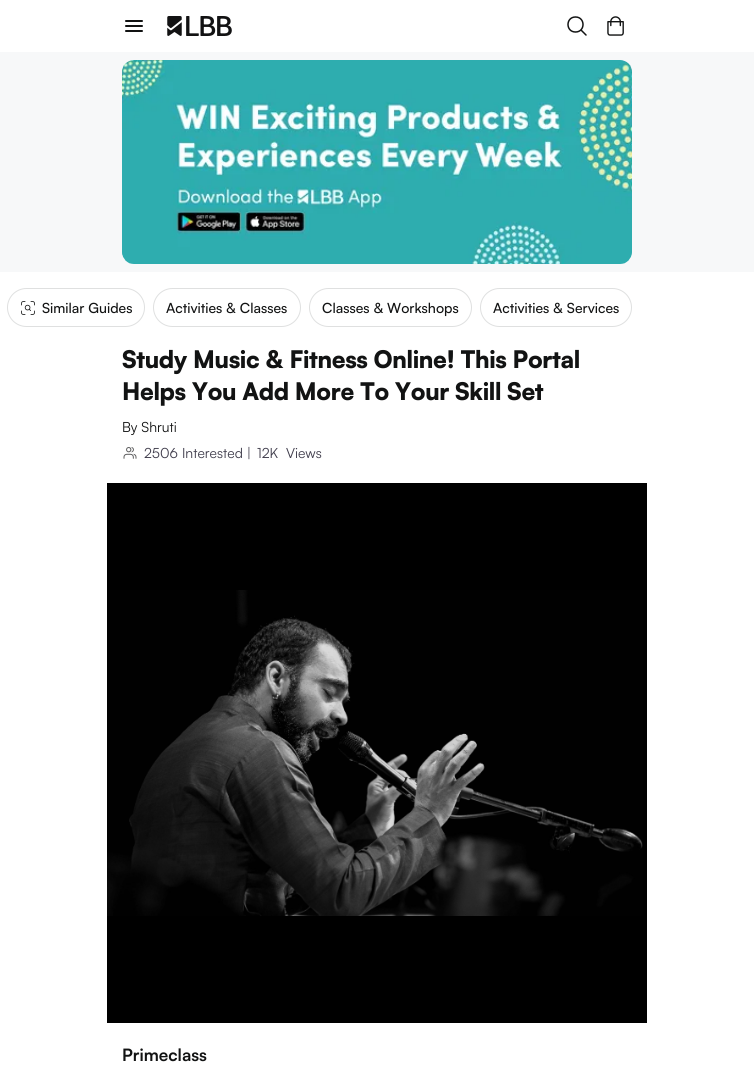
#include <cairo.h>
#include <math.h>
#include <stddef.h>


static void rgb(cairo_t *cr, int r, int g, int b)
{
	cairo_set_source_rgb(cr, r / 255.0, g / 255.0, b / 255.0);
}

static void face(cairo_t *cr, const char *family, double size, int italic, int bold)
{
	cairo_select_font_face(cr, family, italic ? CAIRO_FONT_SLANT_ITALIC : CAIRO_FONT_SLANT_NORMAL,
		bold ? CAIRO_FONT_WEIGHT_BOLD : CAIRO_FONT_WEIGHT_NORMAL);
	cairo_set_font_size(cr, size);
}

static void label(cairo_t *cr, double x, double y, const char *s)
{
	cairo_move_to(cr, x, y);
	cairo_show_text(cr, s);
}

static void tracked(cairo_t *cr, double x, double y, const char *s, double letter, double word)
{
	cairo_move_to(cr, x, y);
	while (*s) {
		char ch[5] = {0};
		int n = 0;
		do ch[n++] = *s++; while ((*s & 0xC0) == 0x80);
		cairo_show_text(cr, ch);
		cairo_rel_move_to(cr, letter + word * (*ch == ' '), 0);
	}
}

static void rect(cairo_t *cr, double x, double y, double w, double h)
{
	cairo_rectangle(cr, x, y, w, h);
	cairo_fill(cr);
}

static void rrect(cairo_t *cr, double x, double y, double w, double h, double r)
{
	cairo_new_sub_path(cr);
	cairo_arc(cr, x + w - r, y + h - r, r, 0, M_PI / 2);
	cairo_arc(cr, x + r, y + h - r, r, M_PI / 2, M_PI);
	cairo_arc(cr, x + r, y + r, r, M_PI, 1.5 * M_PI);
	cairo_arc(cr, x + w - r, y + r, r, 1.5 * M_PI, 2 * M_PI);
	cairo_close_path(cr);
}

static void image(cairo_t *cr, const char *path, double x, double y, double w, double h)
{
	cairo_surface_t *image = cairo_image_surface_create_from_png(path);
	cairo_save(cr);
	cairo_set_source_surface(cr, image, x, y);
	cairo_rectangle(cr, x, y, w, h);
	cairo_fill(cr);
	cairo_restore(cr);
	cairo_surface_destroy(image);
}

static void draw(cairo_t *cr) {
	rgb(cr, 255, 255, 255);
	cairo_paint(cr);
	cairo_new_path(cr);
	cairo_move_to(cr, 126, 31);
	cairo_line_to(cr, 142, 31);
	cairo_move_to(cr, 126, 26);
	cairo_line_to(cr, 142, 26);
	cairo_move_to(cr, 126, 21);
	cairo_line_to(cr, 142, 21);
	rgb(cr, 18, 19, 19);
	cairo_set_line_cap(cr, CAIRO_LINE_CAP_ROUND);
	cairo_stroke(cr);
	image(cr, "image0.png", 167, 16, 65, 20);
	cairo_new_path(cr);
	cairo_move_to(cr, 575.5, 32);
	cairo_curve_to(cr, 585.5, 32, 585.5, 17, 575.5, 17);
	cairo_curve_to(cr, 565.5, 17, 565.5, 32, 575.5, 32);
	cairo_close_path(cr);
	cairo_move_to(cr, 586, 35);
	cairo_line_to(cr, 581, 30);
	cairo_set_line_width(cr, 1.5);
	cairo_set_line_join(cr, CAIRO_LINE_JOIN_ROUND);
	cairo_stroke(cr);
	image(cr, "image1.png", 607, 16, 17, 20);
	rgb(cr, 247, 248, 249);
	rect(cr, 0, 52, 754, 220);
	image(cr, "image2.png", 122, 60, 510, 204);
	rrect(cr, 7.5, 288.5, 137, 38, 19);
	rgb(cr, 223, 224, 224);
	cairo_set_line_width(cr, 1);
	cairo_set_line_cap(cr, CAIRO_LINE_CAP_BUTT);
	cairo_set_line_join(cr, CAIRO_LINE_JOIN_MITER);
	cairo_stroke(cr);
	image(cr, "image3.png", 21, 301, 14, 14);
	face(cr, "Satoshi Medium", 14, 0, 0);
	rgb(cr, 18, 19, 19);
	label(cr, 42, 313, "Similar Guides");
	rrect(cr, 153.5, 288.5, 147, 38, 19);
	rgb(cr, 223, 224, 224);
	cairo_stroke(cr);
	rgb(cr, 18, 19, 19);
	label(cr, 166, 313, "Activities & Classes");
	rrect(cr, 309.5, 288.5, 162, 38, 19);
	rgb(cr, 223, 224, 224);
	cairo_stroke(cr);
	rgb(cr, 18, 19, 19);
	label(cr, 322, 313, "Classes & Workshops");
	rrect(cr, 480.5, 288.5, 151, 38, 19);
	rgb(cr, 223, 224, 224);
	cairo_stroke(cr);
	rgb(cr, 18, 19, 19);
	label(cr, 493, 313, "Activities & Services");
	face(cr, "Satoshi Black", 24, 0, 0);
	tracked(cr, 122, 368, "Study Music & Fitness Online! This Portal", -0.35, 0);
	tracked(cr, 122, 400, "Helps You Add More To Your Skill Set", -0.35, 0);
	face(cr, "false", 14, 0, 0);
	label(cr, 122, 432, "By Shruti");
	image(cr, "image4.png", 123, 447, 14, 12);
	rgb(cr, 63, 60, 75);
	label(cr, 144, 458, "2506 Interested |");
	label(cr, 257, 458, "12K");
	label(cr, 286, 458, "Views");
	rgb(cr, 0, 0, 0);
	rect(cr, 107, 483, 540, 540);
	image(cr, "image5.png", 107, 590, 536, 326);
	face(cr, "false", 17, 0, 1);
	rgb(cr, 18, 19, 19);
	label(cr, 122, 1061, "Primeclass");
}

int main(void) {
	cairo_surface_t *surface = cairo_image_surface_create(CAIRO_FORMAT_RGB24, 754, 1080);
	cairo_t *cr = cairo_create(surface);
	cairo_font_options_t *options = cairo_font_options_create();
	cairo_font_options_set_hint_metrics(options, CAIRO_HINT_METRICS_OFF);
	cairo_font_options_set_hint_style(options, CAIRO_HINT_STYLE_NONE);
	cairo_set_font_options(cr, options);
	cairo_set_miter_limit(cr, 4);
	draw(cr);
	cairo_surface_write_to_png(surface, "render.png");
	cairo_font_options_destroy(options);
	cairo_destroy(cr);
	cairo_surface_destroy(surface);
	return 0;
}
